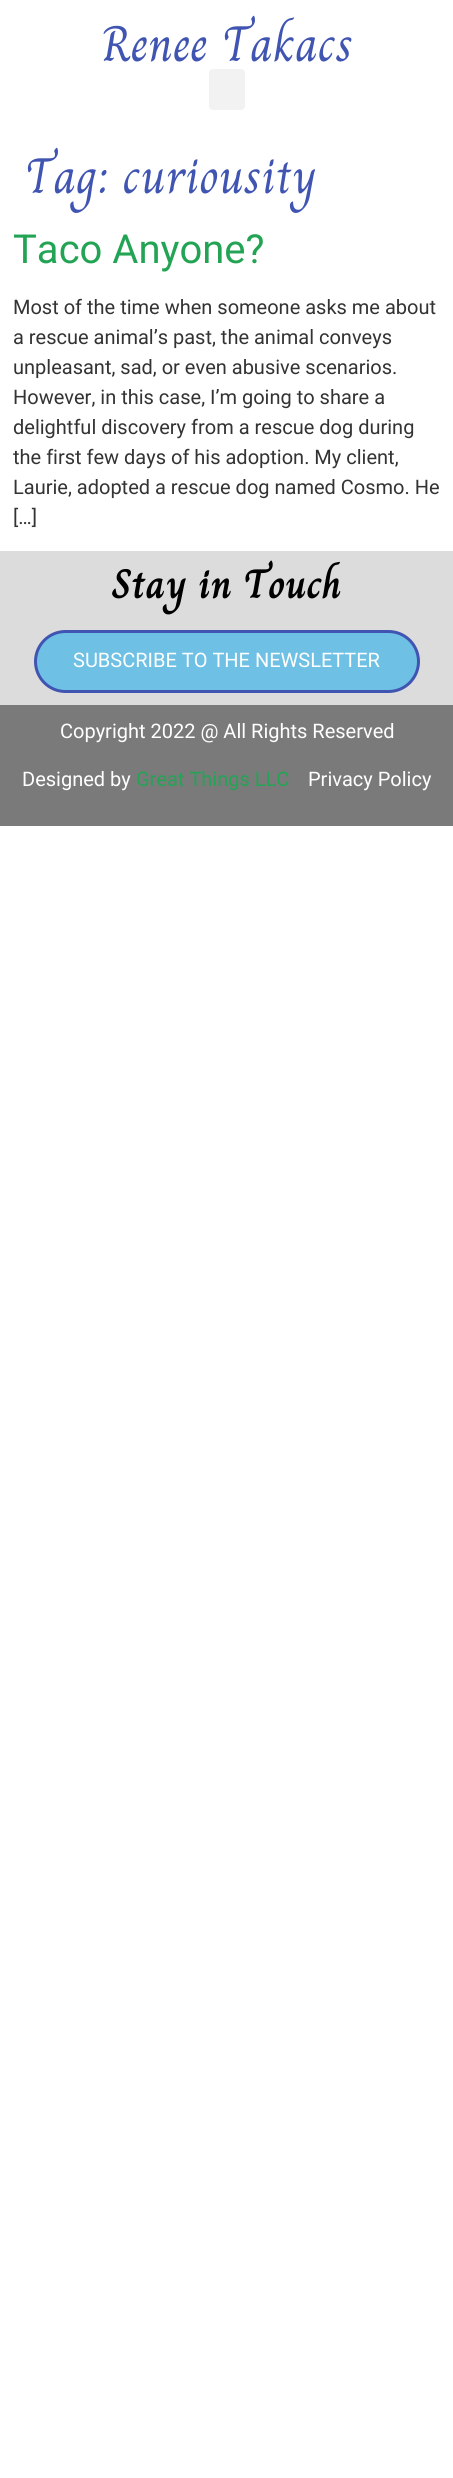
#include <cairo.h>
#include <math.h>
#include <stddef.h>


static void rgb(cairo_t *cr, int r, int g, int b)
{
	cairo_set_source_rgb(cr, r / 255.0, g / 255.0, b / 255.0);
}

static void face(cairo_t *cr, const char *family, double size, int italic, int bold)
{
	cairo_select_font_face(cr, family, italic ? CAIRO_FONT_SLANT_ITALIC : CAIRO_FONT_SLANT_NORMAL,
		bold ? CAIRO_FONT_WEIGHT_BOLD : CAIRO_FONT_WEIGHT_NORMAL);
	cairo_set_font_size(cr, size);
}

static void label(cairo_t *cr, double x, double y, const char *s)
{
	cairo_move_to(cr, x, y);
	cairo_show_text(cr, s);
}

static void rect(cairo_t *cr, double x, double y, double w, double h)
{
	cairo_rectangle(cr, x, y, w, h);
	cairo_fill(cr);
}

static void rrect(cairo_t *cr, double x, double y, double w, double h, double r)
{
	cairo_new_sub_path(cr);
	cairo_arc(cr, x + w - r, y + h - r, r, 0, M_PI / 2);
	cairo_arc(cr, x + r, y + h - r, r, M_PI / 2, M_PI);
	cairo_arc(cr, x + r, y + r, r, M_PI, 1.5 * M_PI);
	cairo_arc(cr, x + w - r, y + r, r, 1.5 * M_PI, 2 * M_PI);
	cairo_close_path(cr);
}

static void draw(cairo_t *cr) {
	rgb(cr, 255, 255, 255);
	cairo_paint(cr);
	face(cr, "Charm", 50, 0, 0);
	rgb(cr, 64, 84, 178);
	label(cr, 101, 61, "Renee Takacs");
	rgb(cr, 242, 242, 242);
	rrect(cr, 209, 69, 36, 41, 4);
	cairo_fill(cr);
	rgb(cr, 64, 84, 178);
	label(cr, 25, 193, "Tag: curiousity");
	face(cr, "Roboto", 40, 0, 0);
	rgb(cr, 35, 164, 85);
	label(cr, 13, 263, "Taco Anyone?");
	face(cr, "Roboto", 20, 0, 0);
	rgb(cr, 51, 51, 51);
	label(cr, 13, 314, "Most of the time when someone asks me about");
	label(cr, 13, 344, "a rescue animal’s past, the animal conveys");
	label(cr, 13, 374, "unpleasant, sad, or even abusive scenarios.");
	label(cr, 13, 404, "However, in this case, I’m going to share a");
	label(cr, 13, 434, "delightful discovery from a rescue dog during");
	label(cr, 13, 464, "the first few days of his adoption. My client,");
	label(cr, 13, 494, "Laurie, adopted a rescue dog named Cosmo. He");
	label(cr, 13, 524, "[…]");
	rgb(cr, 220, 220, 220);
	rect(cr, 0, 551, 453, 154);
	face(cr, "Charm", 41.25, 0, 1);
	rgb(cr, 0, 0, 0);
	label(cr, 112, 598, "Stay in Touch");
	rgb(cr, 110, 193, 228);
	rrect(cr, 35.5, 631.5, 383, 60, 30);
	cairo_fill_preserve(cr);
	rgb(cr, 64, 84, 178);
	cairo_set_line_width(cr, 3);
	cairo_stroke(cr);
	face(cr, "Roboto", 20, 0, 0);
	rgb(cr, 255, 255, 255);
	label(cr, 73, 667, "SUBSCRIBE TO THE NEWSLETTER");
	rgb(cr, 122, 122, 122);
	rect(cr, 0, 705, 453, 121);
	rgb(cr, 255, 255, 255);
	label(cr, 60, 738, "Copyright 2022 @ All Rights Reserved");
	label(cr, 22, 786, "Designed by");
	rgb(cr, 35, 164, 85);
	label(cr, 136, 786, "Great Things LLC");
	rgb(cr, 255, 255, 255);
	label(cr, 308, 786, "Privacy Policy");
}

int main(void) {
	cairo_surface_t *surface = cairo_image_surface_create(CAIRO_FORMAT_RGB24, 453, 2478);
	cairo_t *cr = cairo_create(surface);
	cairo_font_options_t *options = cairo_font_options_create();
	cairo_font_options_set_hint_metrics(options, CAIRO_HINT_METRICS_OFF);
	cairo_font_options_set_hint_style(options, CAIRO_HINT_STYLE_NONE);
	cairo_set_font_options(cr, options);
	cairo_set_miter_limit(cr, 4);
	draw(cr);
	cairo_surface_write_to_png(surface, "render.png");
	cairo_font_options_destroy(options);
	cairo_destroy(cr);
	cairo_surface_destroy(surface);
	return 0;
}
